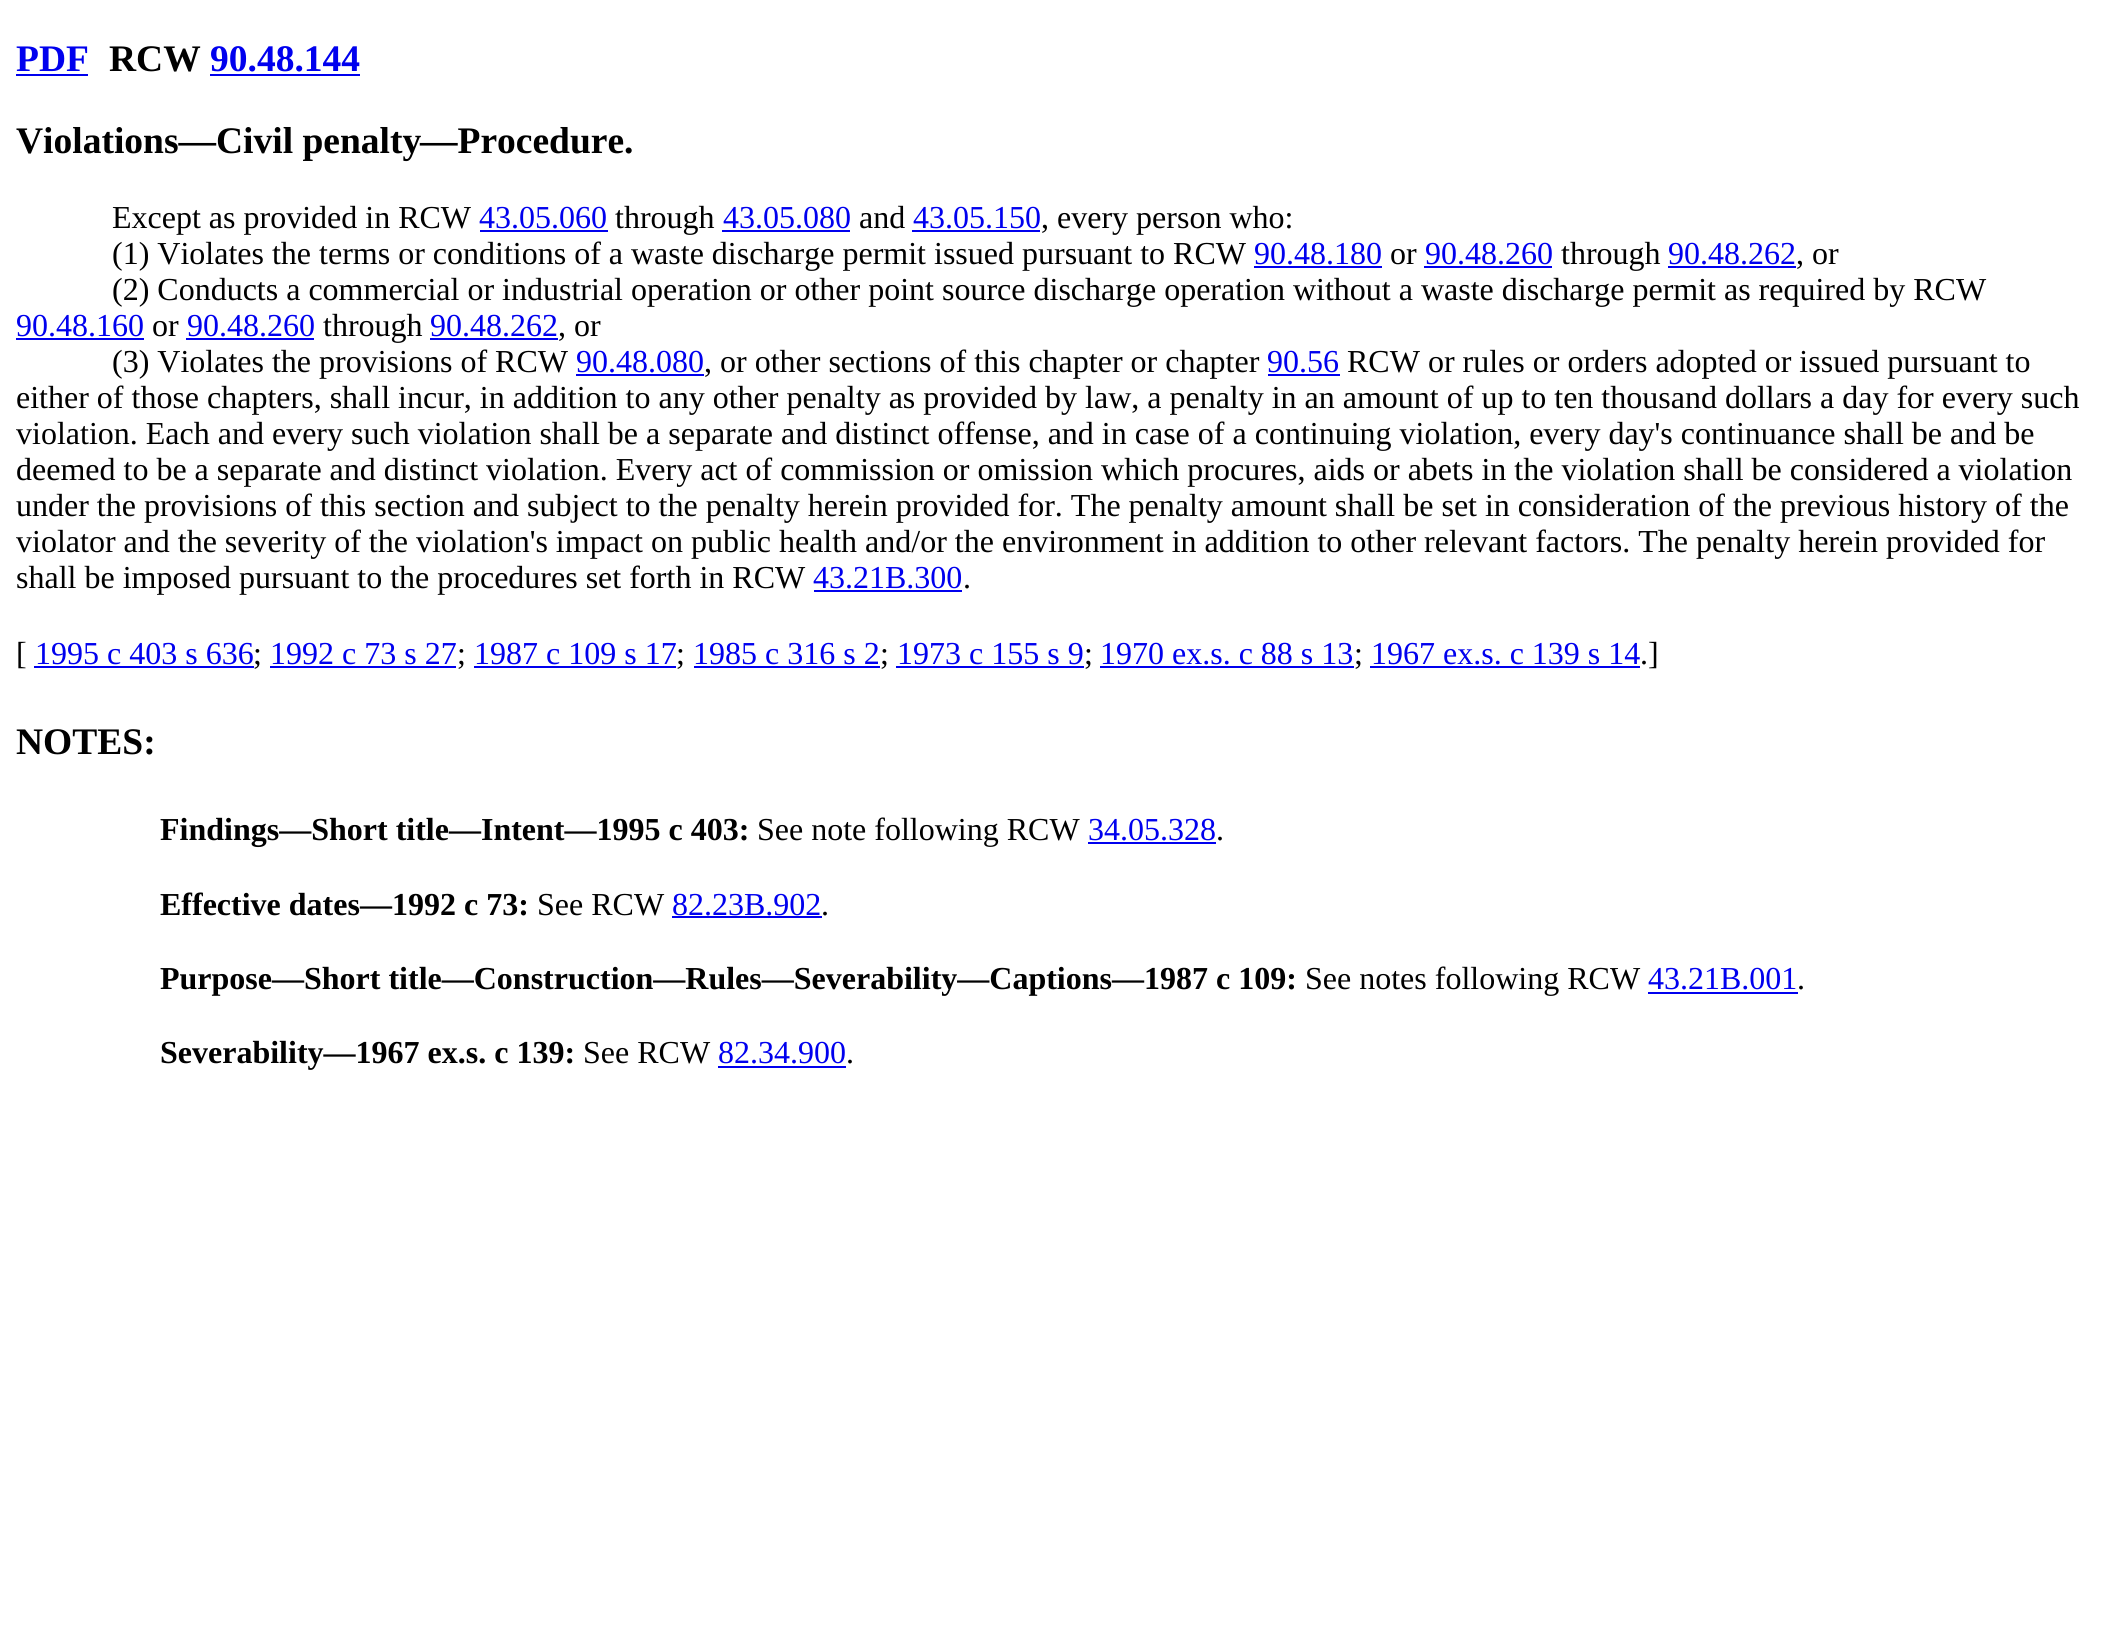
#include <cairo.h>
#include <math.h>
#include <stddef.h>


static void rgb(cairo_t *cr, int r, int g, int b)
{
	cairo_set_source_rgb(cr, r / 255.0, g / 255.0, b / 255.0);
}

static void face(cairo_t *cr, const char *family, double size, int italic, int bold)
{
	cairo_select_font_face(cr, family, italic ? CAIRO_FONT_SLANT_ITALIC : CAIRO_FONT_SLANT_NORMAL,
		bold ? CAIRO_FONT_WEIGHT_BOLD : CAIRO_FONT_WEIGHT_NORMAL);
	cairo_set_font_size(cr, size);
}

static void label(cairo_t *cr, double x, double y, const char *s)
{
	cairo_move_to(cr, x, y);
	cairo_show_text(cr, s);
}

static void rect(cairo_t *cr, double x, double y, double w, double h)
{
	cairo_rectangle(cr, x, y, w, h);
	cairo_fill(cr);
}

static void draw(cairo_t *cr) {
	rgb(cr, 255, 255, 255);
	cairo_paint(cr);
	face(cr, "Liberation Serif", 37.5, 0, 1);
	rgb(cr, 0, 0, 238);
	label(cr, 16, 71, "PDF");
	rect(cr, 16, 74, 72, 2);
	rgb(cr, 0, 0, 0);
	label(cr, 109, 71, "RCW");
	rgb(cr, 0, 0, 238);
	label(cr, 210, 71, "90.48.144");
	rect(cr, 210, 74, 150, 2);
	rgb(cr, 0, 0, 0);
	label(cr, 16, 153, "Violations—Civil penalty");
	label(cr, 420, 153, "—Procedure.");
	face(cr, "Liberation Serif", 32, 0, 0);
	label(cr, 112, 228, "Except as provided in RCW");
	rgb(cr, 0, 0, 238);
	label(cr, 479, 228, "43.05.060");
	rect(cr, 480, 230, 128, 2);
	rgb(cr, 0, 0, 0);
	label(cr, 615, 228, "through");
	rgb(cr, 0, 0, 238);
	label(cr, 723, 228, "43.05.080");
	rect(cr, 722, 230, 128, 2);
	rgb(cr, 0, 0, 0);
	label(cr, 859, 228, "and");
	rgb(cr, 0, 0, 238);
	label(cr, 913, 228, "43.05.150");
	rect(cr, 912, 230, 128, 2);
	rgb(cr, 0, 0, 0);
	label(cr, 1041, 228, ", every person who:");
	label(cr, 112, 264, "(1) Violates the terms or conditions of a waste discharge permit issued pursuant to RCW");
	rgb(cr, 0, 0, 238);
	label(cr, 1254, 264, "90.48.180");
	rect(cr, 1254, 266, 128, 2);
	rgb(cr, 0, 0, 0);
	label(cr, 1390, 264, "or");
	rgb(cr, 0, 0, 238);
	label(cr, 1425, 264, "90.48.260");
	rect(cr, 1424, 266, 128, 2);
	rgb(cr, 0, 0, 0);
	label(cr, 1561, 264, "through");
	rgb(cr, 0, 0, 238);
	label(cr, 1668, 264, "90.48.262");
	rect(cr, 1668, 266, 128, 2);
	rgb(cr, 0, 0, 0);
	label(cr, 1796, 264, ", or");
	label(cr, 112, 300, "(2) Conducts a commercial or industrial operation or other point source discharge operation without a waste discharge permit as required by RCW");
	rgb(cr, 0, 0, 238);
	label(cr, 16, 336, "90.48.160");
	rect(cr, 16, 338, 128, 2);
	rgb(cr, 0, 0, 0);
	label(cr, 152, 336, "or");
	rgb(cr, 0, 0, 238);
	label(cr, 187, 336, "90.48.260");
	rect(cr, 186, 338, 128, 2);
	rgb(cr, 0, 0, 0);
	label(cr, 323, 336, "through");
	rgb(cr, 0, 0, 238);
	label(cr, 430, 336, "90.48.262");
	rect(cr, 430, 338, 128, 2);
	rgb(cr, 0, 0, 0);
	label(cr, 558, 336, ", or");
	label(cr, 112, 372, "(3) Violates the provisions of RCW");
	rgb(cr, 0, 0, 238);
	label(cr, 576, 372, "90.48.080");
	rect(cr, 576, 374, 128, 2);
	rgb(cr, 0, 0, 0);
	label(cr, 704, 372, ", or other sections of this chapter or chapter");
	rgb(cr, 0, 0, 238);
	label(cr, 1267, 372, "90.56");
	rect(cr, 1268, 374, 72, 2);
	rgb(cr, 0, 0, 0);
	label(cr, 1347, 372, "RCW or rules or orders adopted or issued pursuant to");
	label(cr, 16, 408, "either of those chapters, shall incur, in addition to any other penalty as provided by law, a penalty in an amount of up to ten thousand dollars a day for every such");
	label(cr, 16, 444, "violation. Each and every such violation shall be a separate and distinct offense, and in case of a continuing violation, every day's continuance shall be and be");
	label(cr, 16, 480, "deemed to be a separate and distinct violation. Every act of commission or omission which procures, aids or abets in the violation shall be considered a violation");
	label(cr, 16, 516, "under the provisions of this section and subject to the penalty herein provided for. The penalty amount shall be set in consideration of the previous history of the");
	label(cr, 16, 552, "violator and the severity of the violation's impact on public health and/or the environment in addition to other relevant factors. The penalty herein provided for");
	label(cr, 16, 588, "shall be imposed pursuant to the procedures set forth in RCW");
	rgb(cr, 0, 0, 238);
	label(cr, 813, 588, "43.21B.300");
	rect(cr, 814, 590, 148, 2);
	rgb(cr, 0, 0, 0);
	label(cr, 963, 588, ".");
	label(cr, 16, 664, "[");
	rgb(cr, 0, 0, 238);
	label(cr, 35, 664, "1995 c 403 s 636");
	rect(cr, 34, 666, 220, 2);
	rgb(cr, 0, 0, 0);
	label(cr, 253, 664, ";");
	rgb(cr, 0, 0, 238);
	label(cr, 270, 664, "1992 c 73 s 27");
	rect(cr, 270, 666, 186, 2);
	rgb(cr, 0, 0, 0);
	label(cr, 457, 664, ";");
	rgb(cr, 0, 0, 238);
	label(cr, 474, 664, "1987 c 109 s 17");
	rect(cr, 474, 666, 202, 2);
	rgb(cr, 0, 0, 0);
	label(cr, 676, 664, ";");
	rgb(cr, 0, 0, 238);
	label(cr, 693, 664, "1985 c 316 s 2");
	rect(cr, 694, 666, 186, 2);
	rgb(cr, 0, 0, 0);
	label(cr, 880, 664, ";");
	rgb(cr, 0, 0, 238);
	label(cr, 897, 664, "1973 c 155 s 9");
	rect(cr, 896, 666, 188, 2);
	rgb(cr, 0, 0, 0);
	label(cr, 1084, 664, ";");
	rgb(cr, 0, 0, 238);
	label(cr, 1100, 664, "1970 ex.s. c 88 s 13");
	rect(cr, 1100, 666, 254, 2);
	rgb(cr, 0, 0, 0);
	label(cr, 1354, 664, ";");
	rgb(cr, 0, 0, 238);
	label(cr, 1371, 664, "1967 ex.s. c 139 s 14");
	rect(cr, 1370, 666, 270, 2);
	rgb(cr, 0, 0, 0);
	label(cr, 1640, 664, ".]");
	face(cr, "Liberation Serif", 37.5, 0, 1);
	label(cr, 16, 754, "NOTES:");
	face(cr, "Liberation Serif", 32, 0, 1);
	label(cr, 160, 840, "Findings—Short title—Intent—1995 c 403:");
	face(cr, "Liberation Serif", 32, 0, 0);
	label(cr, 757, 840, "See note following RCW");
	rgb(cr, 0, 0, 238);
	label(cr, 1088, 840, "34.05.328");
	rect(cr, 1088, 842, 128, 2);
	rgb(cr, 0, 0, 0);
	label(cr, 1216, 840, ".");
	face(cr, "Liberation Serif", 32, 0, 1);
	label(cr, 160, 915, "Effective dates—1992 c 73:");
	face(cr, "Liberation Serif", 32, 0, 0);
	label(cr, 537, 915, "See RCW");
	rgb(cr, 0, 0, 238);
	label(cr, 672, 915, "82.23B.902");
	rect(cr, 672, 916, 150, 2);
	rgb(cr, 0, 0, 0);
	label(cr, 821, 915, ".");
	face(cr, "Liberation Serif", 32, 0, 1);
	label(cr, 160, 989, "Purpose—Short title—Construction—Rules—Severability—Captions—1987 c 109:");
	face(cr, "Liberation Serif", 32, 0, 0);
	label(cr, 1305, 989, "See notes following RCW");
	rgb(cr, 0, 0, 238);
	label(cr, 1648, 989, "43.21B.001");
	rect(cr, 1648, 992, 150, 2);
	rgb(cr, 0, 0, 0);
	label(cr, 1797, 989, ".");
	face(cr, "Liberation Serif", 32, 0, 1);
	label(cr, 160, 1063, "Severability—1967 ex.s. c 139:");
	face(cr, "Liberation Serif", 32, 0, 0);
	label(cr, 583, 1063, "See RCW");
	rgb(cr, 0, 0, 238);
	label(cr, 718, 1063, "82.34.900");
	rect(cr, 718, 1066, 128, 2);
	rgb(cr, 0, 0, 0);
	label(cr, 846, 1063, ".");
}

int main(void) {
	cairo_surface_t *surface = cairo_image_surface_create(CAIRO_FORMAT_RGB24, 2119, 1625);
	cairo_t *cr = cairo_create(surface);
	cairo_font_options_t *options = cairo_font_options_create();
	cairo_font_options_set_hint_metrics(options, CAIRO_HINT_METRICS_OFF);
	cairo_font_options_set_hint_style(options, CAIRO_HINT_STYLE_NONE);
	cairo_set_font_options(cr, options);
	cairo_set_miter_limit(cr, 4);
	draw(cr);
	cairo_surface_write_to_png(surface, "render.png");
	cairo_font_options_destroy(options);
	cairo_destroy(cr);
	cairo_surface_destroy(surface);
	return 0;
}
